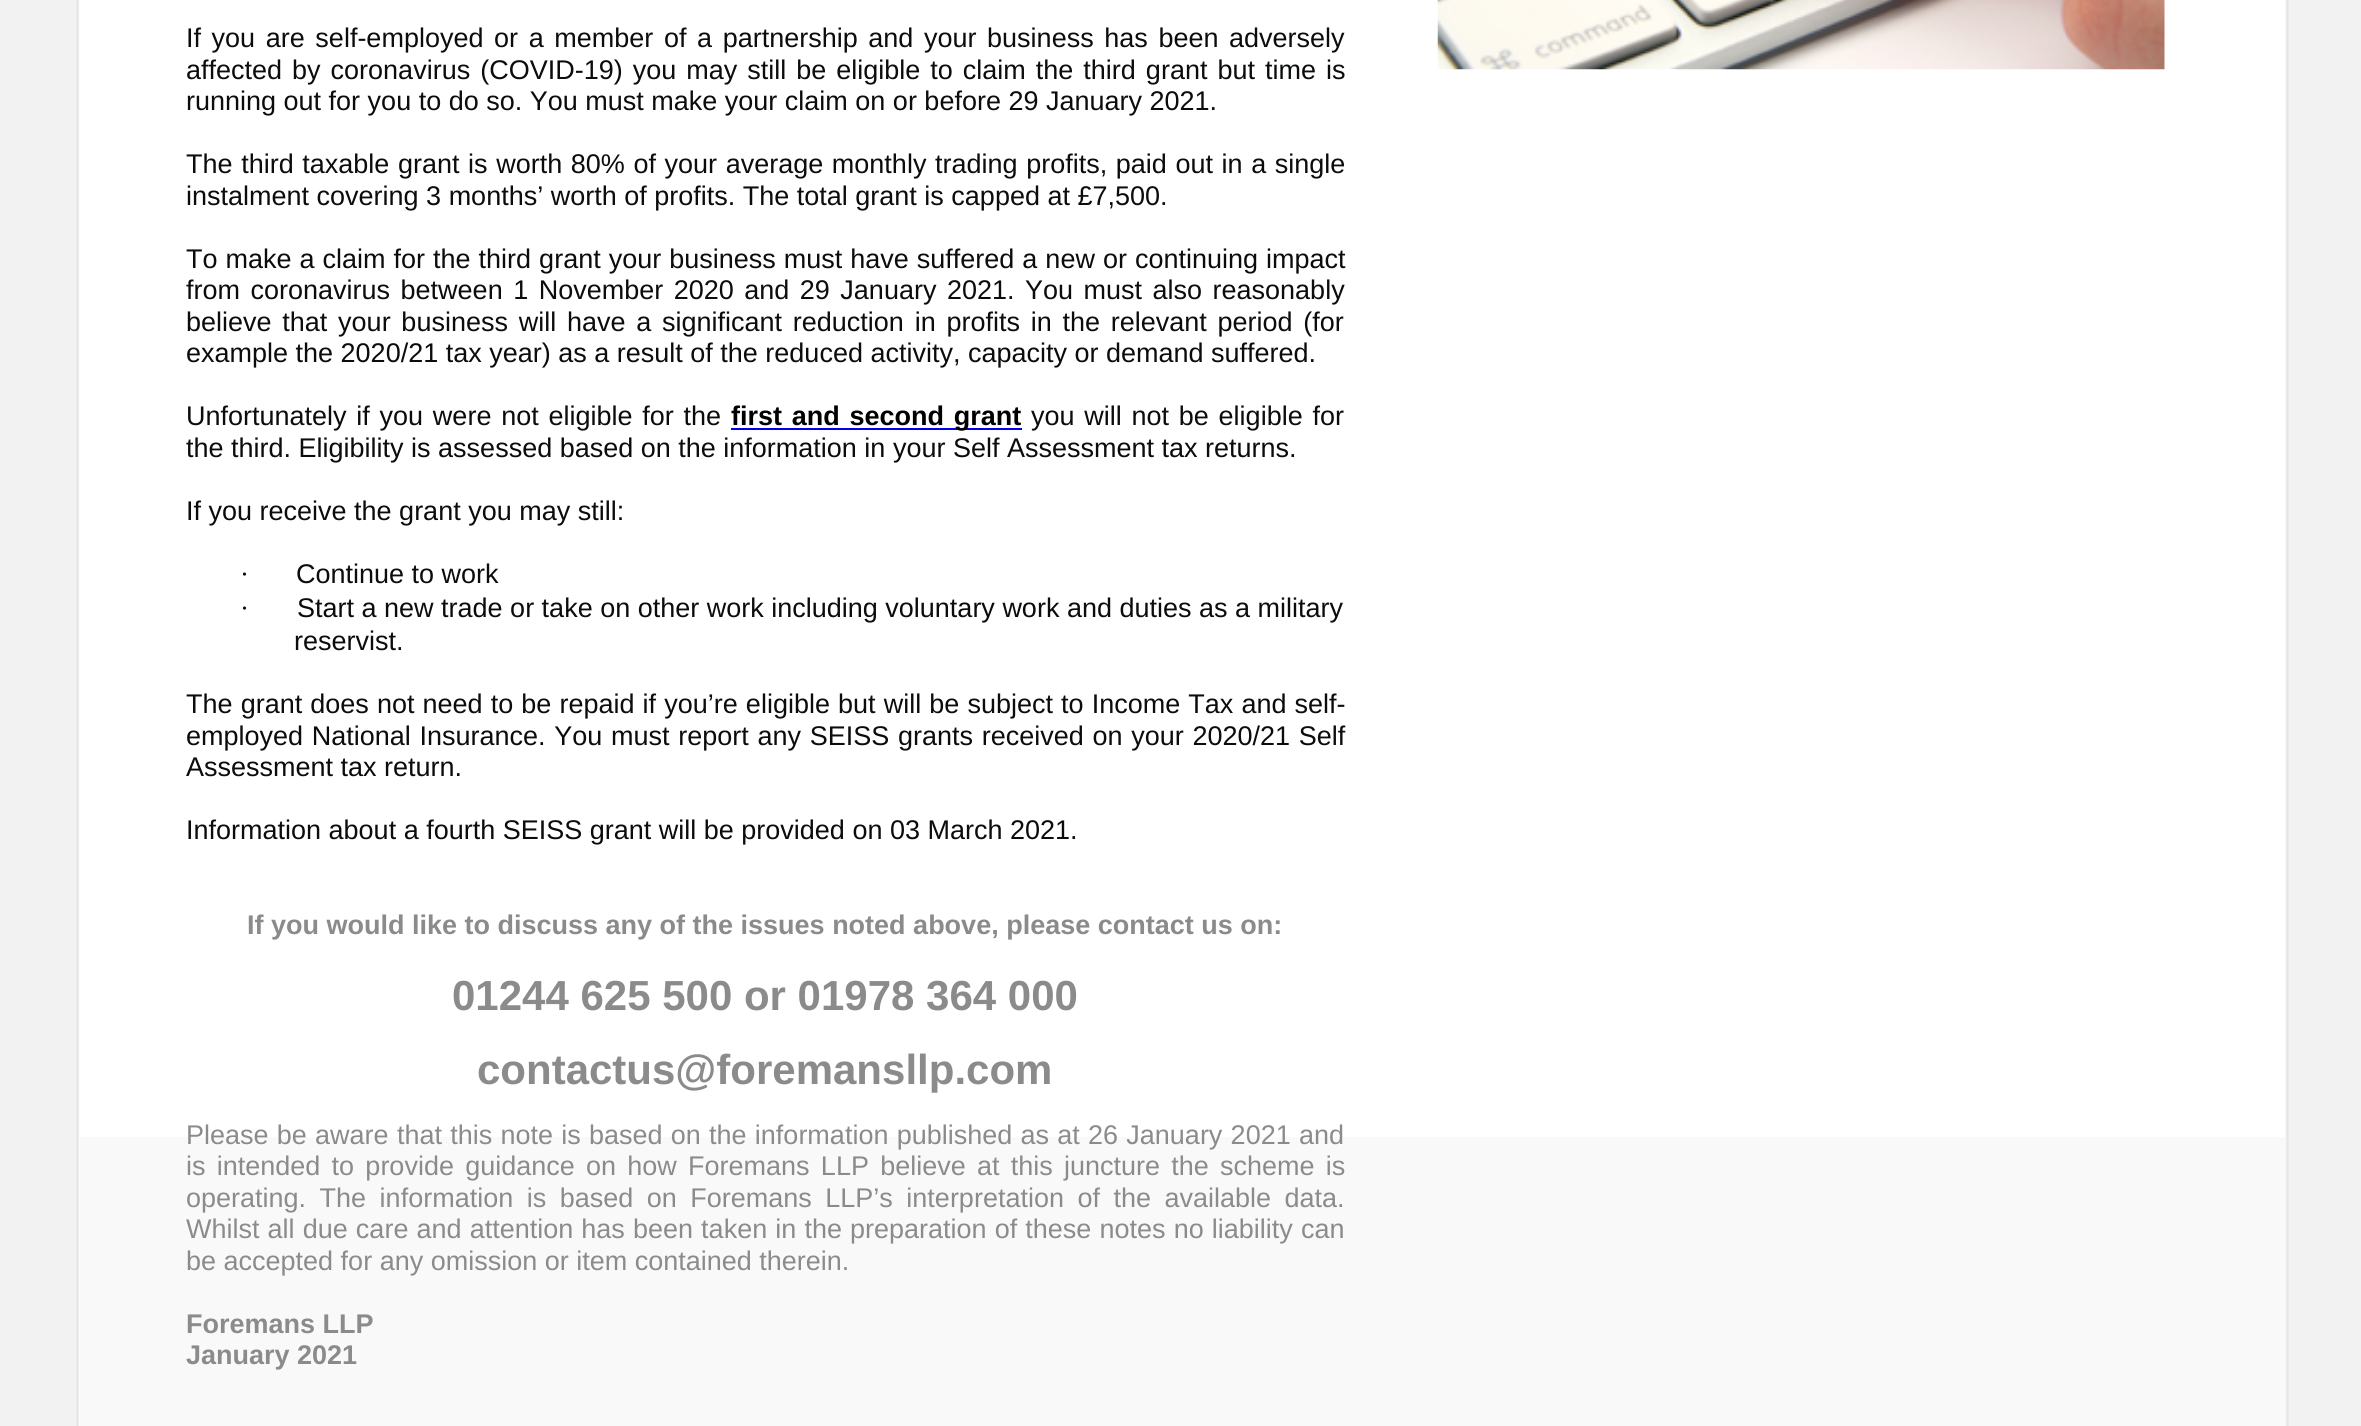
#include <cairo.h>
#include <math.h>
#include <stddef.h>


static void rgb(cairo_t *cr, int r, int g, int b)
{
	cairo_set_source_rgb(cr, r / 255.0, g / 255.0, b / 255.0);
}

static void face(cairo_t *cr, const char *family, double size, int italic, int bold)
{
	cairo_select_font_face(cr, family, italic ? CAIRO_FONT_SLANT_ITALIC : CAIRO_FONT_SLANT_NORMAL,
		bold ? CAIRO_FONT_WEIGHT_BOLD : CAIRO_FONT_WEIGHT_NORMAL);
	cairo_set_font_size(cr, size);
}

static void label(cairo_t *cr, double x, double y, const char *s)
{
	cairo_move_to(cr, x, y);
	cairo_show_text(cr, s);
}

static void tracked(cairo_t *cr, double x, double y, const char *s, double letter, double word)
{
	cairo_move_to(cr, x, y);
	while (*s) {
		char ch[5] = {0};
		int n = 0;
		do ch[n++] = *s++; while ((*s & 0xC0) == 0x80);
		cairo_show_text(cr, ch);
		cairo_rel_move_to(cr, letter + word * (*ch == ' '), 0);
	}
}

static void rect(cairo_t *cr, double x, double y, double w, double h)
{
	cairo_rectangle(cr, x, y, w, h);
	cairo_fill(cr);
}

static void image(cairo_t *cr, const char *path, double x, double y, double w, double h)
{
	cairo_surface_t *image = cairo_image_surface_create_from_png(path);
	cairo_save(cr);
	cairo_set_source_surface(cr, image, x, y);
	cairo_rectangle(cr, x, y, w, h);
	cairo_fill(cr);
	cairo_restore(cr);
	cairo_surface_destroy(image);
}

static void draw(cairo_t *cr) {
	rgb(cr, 242, 242, 242);
	cairo_paint(cr);
	image(cr, "image0.png", 76, 0, 2213, 1426);
	rgb(cr, 249, 249, 249);
	rect(cr, 80, 1137, 2205, 289);
	face(cr, "Liberation Sans", 27, 0, 0);
	rgb(cr, 11, 12, 12);
	tracked(cr, 186, 47, "If you are self-employed or a member of a partnership and your business has been adversely", 0, 3.1);
	tracked(cr, 186, 79, "affected by coronavirus (COVID-19) you may still be eligible to claim the third grant but time is", 0, 2.5);
	label(cr, 186, 110, "running out for you to do so. You must make your claim on or before 29 January 2021.");
	tracked(cr, 186, 173, "The third taxable grant is worth 80% of your average monthly trading profits, paid out in a single", 0, 1.1);
	label(cr, 186, 205, "instalment covering 3 months’ worth of profits. The total grant is capped at £7,500.");
	tracked(cr, 186, 268, "To make a claim for the third grant your business must have suffered a new or continuing impact", 0, 0.5);
	tracked(cr, 186, 299, "from coronavirus between 1 November 2020 and 29 January 2021. You must also reasonably", 0, 3);
	tracked(cr, 186, 331, "believe that your business will have a significant reduction in profits in the relevant period (for", 0, 3.25);
	label(cr, 186, 362, "example the 2020/21 tax year) as a result of the reduced activity, capacity or demand suffered.");
	tracked(cr, 186, 425, "Unfortunately if you were not eligible for the", 0, 2.25);
	rgb(cr, 0, 0, 238);
	rect(cr, 731, 428, 291, 2);
	face(cr, "Liberation Sans", 27, 0, 1);
	rgb(cr, 0, 0, 0);
	tracked(cr, 731, 425, "first and second grant", 0, 2.25);
	face(cr, "Liberation Sans", 27, 0, 0);
	rgb(cr, 11, 12, 12);
	tracked(cr, 1031, 425, "you will not be eligible for", 0, 2.25);
	label(cr, 186, 457, "the third. Eligibility is assessed based on the information in your Self Assessment tax returns.");
	label(cr, 186, 520, "If you receive the grant you may still:");
	face(cr, "Liberation Serif", 27, 0, 0);
	label(cr, 240, 583, "·");
	face(cr, "Liberation Sans", 27, 0, 0);
	label(cr, 296, 583, "Continue to work");
	face(cr, "Liberation Serif", 27, 0, 0);
	label(cr, 240, 617, "·");
	face(cr, "Liberation Sans", 27, 0, 0);
	label(cr, 297, 617, "Start a new trade or take on other work including voluntary work and duties as a military");
	label(cr, 294, 650, "reservist.");
	tracked(cr, 186, 713, "The grant does not need to be repaid if you’re eligible but will be subject to Income Tax and self-", 0, 0.6);
	tracked(cr, 186, 745, "employed National Insurance. You must report any SEISS grants received on your 2020/21 Self", 0, 1.2);
	label(cr, 186, 776, "Assessment tax return.");
	label(cr, 186, 839, "Information about a fourth SEISS grant will be provided on 03 March 2021.");
	face(cr, "Liberation Sans", 27, 0, 1);
	rgb(cr, 139, 139, 139);
	label(cr, 247, 934, "If you would like to discuss any of the issues noted above, please contact us on:");
	face(cr, "Liberation Sans", 42, 0, 1);
	label(cr, 452, 1010, "01244 625 500 or 01978 364 000");
	label(cr, 477, 1084, "contactus@foremansllp.com");
	face(cr, "Liberation Sans", 27, 0, 0);
	tracked(cr, 186, 1144, "Please be aware that this note is based on the information published as at 26 January 2021 and", 0, 0.75);
	tracked(cr, 186, 1175, "is intended to provide guidance on how Foremans LLP believe at this juncture the scheme is", 0, 3.75);
	tracked(cr, 186, 1207, "operating. The information is based on Foremans LLP’s interpretation of the available data.", 0, 6);
	tracked(cr, 186, 1238, "Whilst all due care and attention has been taken in the preparation of these notes no liability can", 0, 0.6);
	label(cr, 186, 1270, "be accepted for any omission or item contained therein.");
	face(cr, "Liberation Sans", 27, 0, 1);
	label(cr, 186, 1333, "Foremans LLP");
	label(cr, 186, 1364, "January 2021");
	image(cr, "image1.png", 1437, 0, 728, 70);
}

int main(void) {
	cairo_surface_t *surface = cairo_image_surface_create(CAIRO_FORMAT_RGB24, 2361, 1426);
	cairo_t *cr = cairo_create(surface);
	cairo_font_options_t *options = cairo_font_options_create();
	cairo_font_options_set_hint_metrics(options, CAIRO_HINT_METRICS_OFF);
	cairo_font_options_set_hint_style(options, CAIRO_HINT_STYLE_NONE);
	cairo_set_font_options(cr, options);
	cairo_set_miter_limit(cr, 4);
	draw(cr);
	cairo_surface_write_to_png(surface, "render.png");
	cairo_font_options_destroy(options);
	cairo_destroy(cr);
	cairo_surface_destroy(surface);
	return 0;
}
